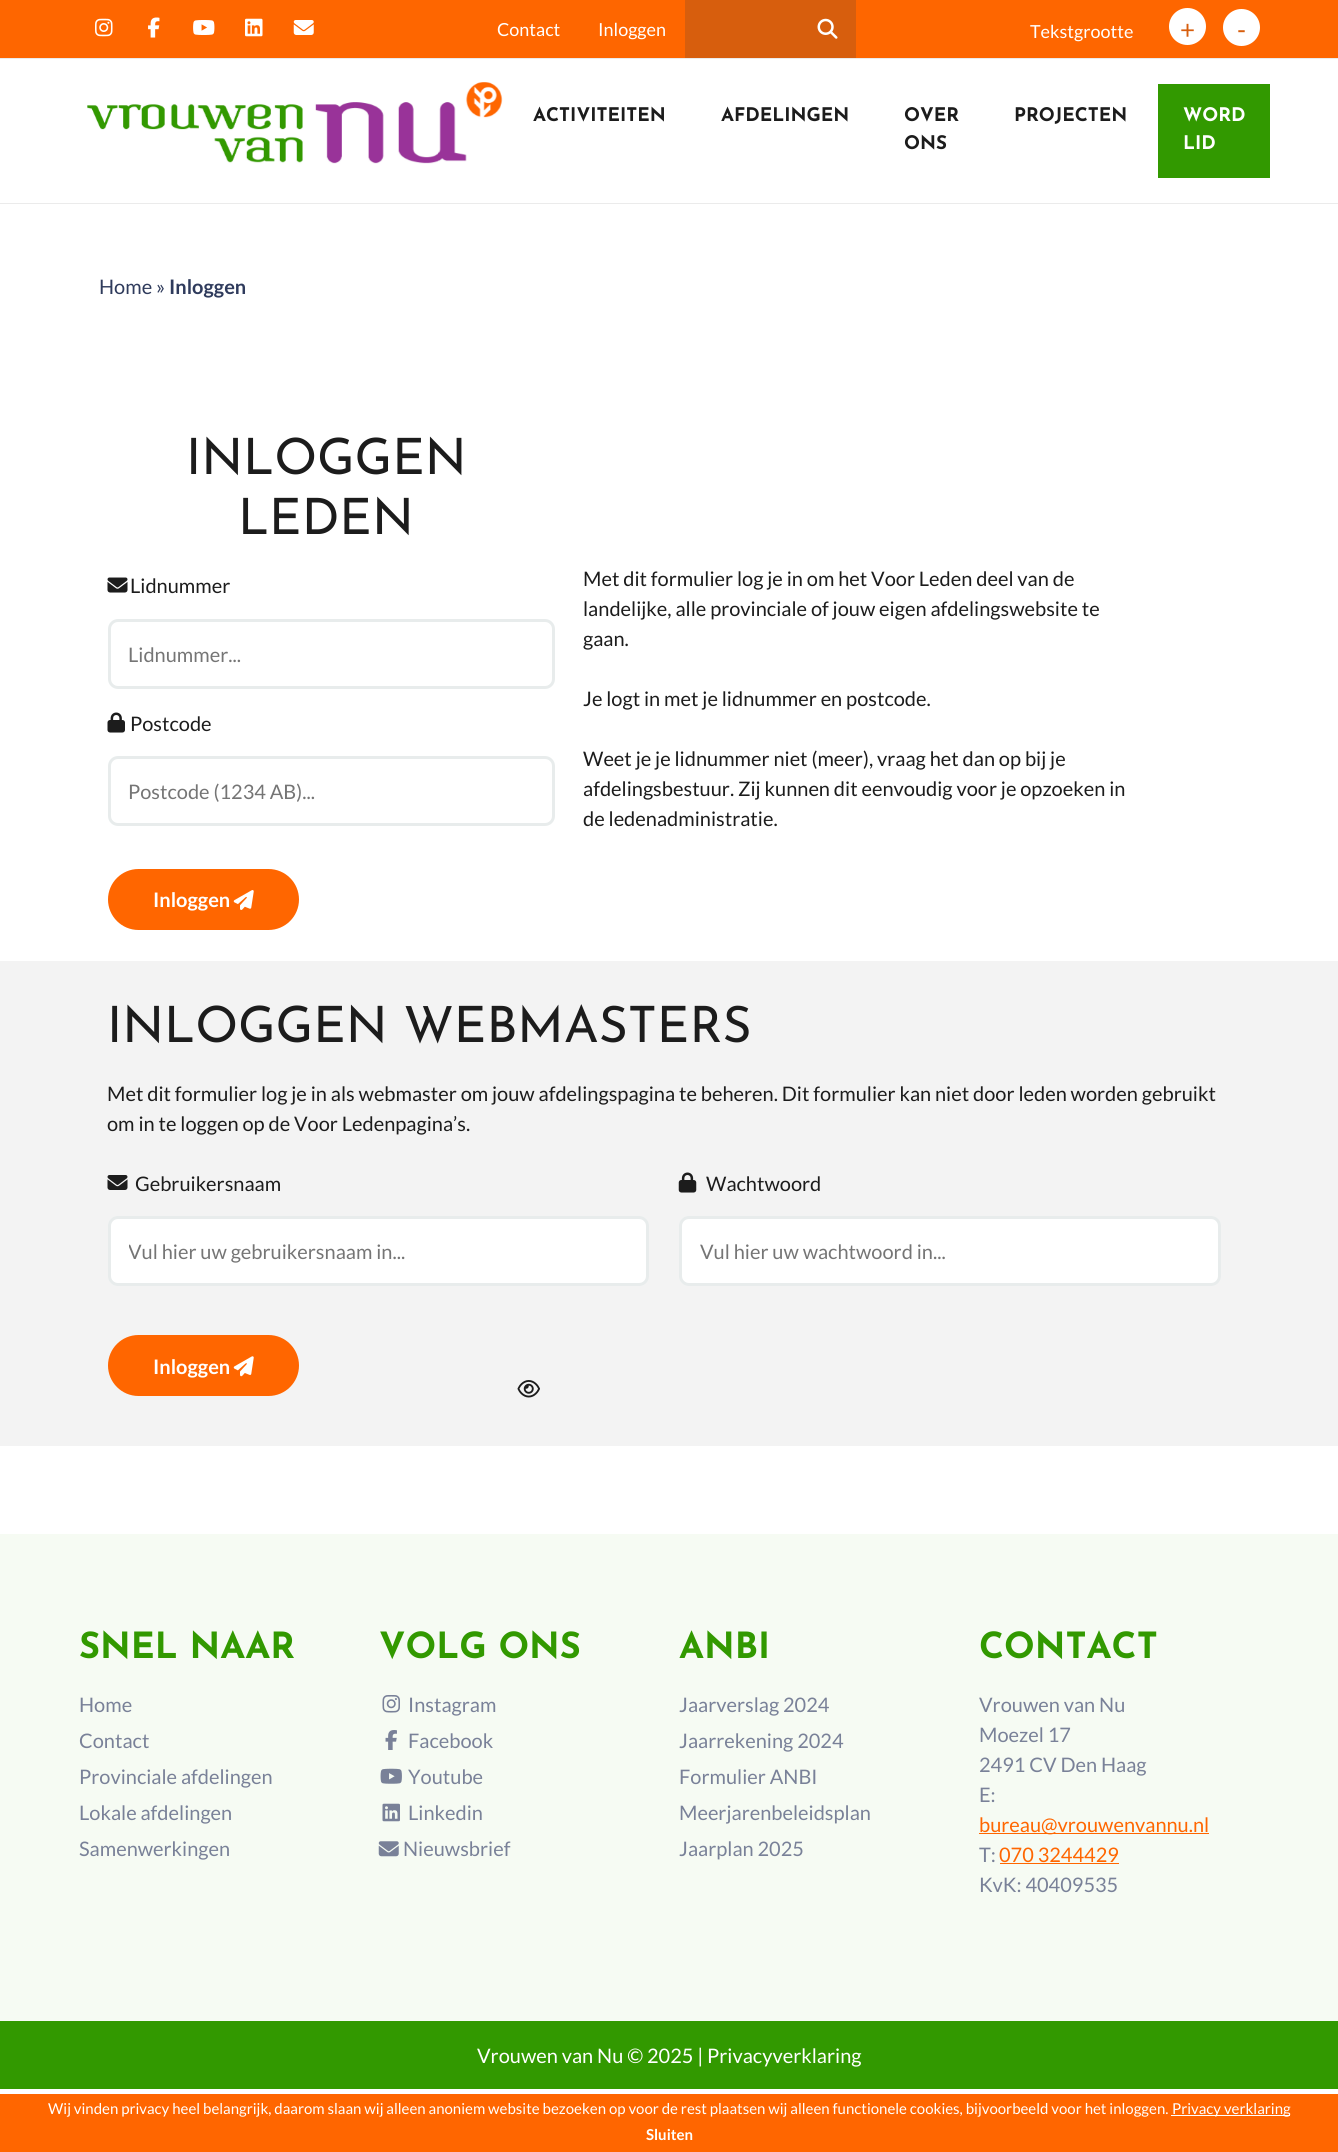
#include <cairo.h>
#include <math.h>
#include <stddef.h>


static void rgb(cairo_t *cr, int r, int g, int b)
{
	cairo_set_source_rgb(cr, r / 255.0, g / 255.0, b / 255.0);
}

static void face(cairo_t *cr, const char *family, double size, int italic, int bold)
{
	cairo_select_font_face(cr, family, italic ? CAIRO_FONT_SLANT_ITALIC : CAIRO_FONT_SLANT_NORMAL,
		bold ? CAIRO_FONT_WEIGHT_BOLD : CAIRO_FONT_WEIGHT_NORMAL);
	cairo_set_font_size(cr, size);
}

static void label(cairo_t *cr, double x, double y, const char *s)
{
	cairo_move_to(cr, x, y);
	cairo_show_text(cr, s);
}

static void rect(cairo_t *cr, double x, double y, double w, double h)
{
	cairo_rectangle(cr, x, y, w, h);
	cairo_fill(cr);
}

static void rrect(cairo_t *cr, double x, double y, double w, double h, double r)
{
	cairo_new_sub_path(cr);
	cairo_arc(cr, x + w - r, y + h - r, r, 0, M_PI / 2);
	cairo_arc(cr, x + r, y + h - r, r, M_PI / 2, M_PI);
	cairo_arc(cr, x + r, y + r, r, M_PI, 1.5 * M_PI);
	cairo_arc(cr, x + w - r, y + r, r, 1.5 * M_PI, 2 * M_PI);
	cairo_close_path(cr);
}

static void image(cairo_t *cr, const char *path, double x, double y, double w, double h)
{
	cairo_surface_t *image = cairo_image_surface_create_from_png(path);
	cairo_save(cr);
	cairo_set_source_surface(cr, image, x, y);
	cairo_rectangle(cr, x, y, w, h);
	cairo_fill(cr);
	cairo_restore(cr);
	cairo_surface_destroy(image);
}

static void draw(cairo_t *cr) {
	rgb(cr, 255, 255, 255);
	cairo_paint(cr);
	rgb(cr, 254, 102, 0);
	rect(cr, 0, 0, 1338, 58);
	image(cr, "image0.png", 95, 18, 18, 19);
	image(cr, "image1.png", 148, 17, 12, 21);
	image(cr, "image2.png", 193, 20, 22, 15);
	image(cr, "image3.png", 245, 18, 18, 19);
	image(cr, "image4.png", 293, 20, 21, 15);
	face(cr, "Lato", 18, 0, 0);
	rgb(cr, 255, 255, 255);
	label(cr, 497, 36, "Contact");
	label(cr, 598, 36, "Inloggen");
	rgb(cr, 215, 94, 13);
	rect(cr, 685, 0, 171, 58);
	image(cr, "image5.png", 817, 18, 21, 21);
	rgb(cr, 255, 255, 255);
	label(cr, 1030, 38, "Tekstgrootte");
	cairo_new_path(cr);
	cairo_arc(cr, 1187.5, 26.5, 18.5, 0, 2 * M_PI);
	cairo_fill(cr);
	face(cr, "Lato", 26, 0, 0);
	rgb(cr, 215, 94, 13);
	label(cr, 1180, 39, "+");
	rgb(cr, 255, 255, 255);
	cairo_new_path(cr);
	cairo_arc(cr, 1241.5, 27.5, 18.5, 0, 2 * M_PI);
	cairo_fill(cr);
	rgb(cr, 215, 94, 13);
	label(cr, 1237, 39, "-");
	rgb(cr, 235, 235, 235);
	rect(cr, 0, 58, 1338, 1);
	rect(cr, 0, 203, 1338, 1);
	image(cr, "image6.png", 87, 82, 416, 82);
	face(cr, "Josefin Sans", 18.75, 0, 1);
	rgb(cr, 28, 28, 28);
	label(cr, 533, 121, "ACTIVITEITEN");
	label(cr, 721, 121, "AFDELINGEN");
	label(cr, 904, 121, "OVER");
	label(cr, 904, 149, "ONS");
	label(cr, 1014, 121, "PROJECTEN");
	rgb(cr, 50, 153, 0);
	rect(cr, 1158, 84, 112, 94);
	rgb(cr, 255, 255, 255);
	label(cr, 1183, 121, "WORD");
	label(cr, 1183, 149, "LID");
	face(cr, "Lato", 20, 0, 0);
	rgb(cr, 47, 59, 92);
	label(cr, 99, 294, "Home »");
	face(cr, "Lato", 20, 0, 1);
	label(cr, 169, 294, "Inloggen");
	face(cr, "Josefin Sans", 50, 0, 0);
	rgb(cr, 28, 28, 28);
	label(cr, 186, 474, "INLOGGEN");
	label(cr, 238, 534, "LEDEN");
	face(cr, "Lato", 20, 0, 0);
	label(cr, 130, 593, "Lidnummer");
	image(cr, "image7.png", 107, 577, 21, 16);
	rrect(cr, 109.5, 620.5, 444, 67, 8.5);
	rgb(cr, 232, 236, 236);
	cairo_set_line_width(cr, 3);
	cairo_stroke(cr);
	rgb(cr, 117, 117, 117);
	label(cr, 128, 662, "Lidnummer...");
	rgb(cr, 28, 28, 28);
	label(cr, 130, 731, "Postcode");
	image(cr, "image8.png", 107, 712, 18, 21);
	rrect(cr, 109.5, 757.5, 444, 67, 8.5);
	rgb(cr, 232, 236, 236);
	cairo_stroke(cr);
	rgb(cr, 117, 117, 117);
	label(cr, 128, 799, "Postcode (1234 AB)...");
	rgb(cr, 255, 102, 0);
	rrect(cr, 108, 869, 191, 61, 30.5);
	cairo_fill(cr);
	face(cr, "Lato", 20, 0, 1);
	rgb(cr, 255, 255, 255);
	label(cr, 153, 907, "Inloggen");
	image(cr, "image9.png", 233, 890, 21, 20);
	face(cr, "Lato", 20, 0, 0);
	rgb(cr, 28, 28, 28);
	label(cr, 583, 586, "Met dit formulier log je in om het Voor Leden deel van de");
	label(cr, 583, 616, "landelijke, alle provinciale of jouw eigen afdelingswebsite te");
	label(cr, 583, 646, "gaan.");
	label(cr, 583, 706, "Je logt in met je lidnummer en postcode.");
	label(cr, 583, 766, "Weet je je lidnummer niet (meer), vraag het dan op bij je");
	label(cr, 583, 796, "afdelingsbestuur. Zij kunnen dit eenvoudig voor je opzoeken in");
	label(cr, 583, 826, "de ledenadministratie.");
	rgb(cr, 243, 243, 243);
	cairo_new_path(cr);
	cairo_move_to(cr, -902, 961);
	cairo_line_to(cr, -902, 1446);
	cairo_line_to(cr, 98, 1446);
	cairo_line_to(cr, 98, 961);
	cairo_line_to(cr, 241, 961);
	cairo_close_path(cr);
	cairo_fill(cr);
	cairo_new_path(cr);
	cairo_move_to(cr, 1098, 961);
	cairo_line_to(cr, 1241, 961);
	cairo_line_to(cr, 1241, 1446);
	cairo_line_to(cr, 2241, 1446);
	cairo_line_to(cr, 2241, 961);
	cairo_close_path(cr);
	cairo_fill(cr);
	rect(cr, 98, 961, 1143, 485);
	face(cr, "Josefin Sans", 50, 0, 0);
	rgb(cr, 28, 28, 28);
	label(cr, 107, 1042, "INLOGGEN WEBMASTERS");
	face(cr, "Lato", 20, 0, 0);
	label(cr, 107, 1101, "Met dit formulier log je in als webmaster om jouw afdelingspagina te beheren. Dit formulier kan niet door leden worden gebruikt");
	label(cr, 107, 1131, "om in te loggen op de Voor Ledenpagina’s.");
	label(cr, 135, 1191, "Gebruikersnaam");
	image(cr, "image10.png", 107, 1175, 21, 15);
	rgb(cr, 255, 255, 255);
	rrect(cr, 109.5, 1217.5, 538, 67, 8.5);
	cairo_fill_preserve(cr);
	rgb(cr, 232, 236, 236);
	cairo_stroke(cr);
	cairo_save(cr);
	cairo_rectangle(cr, 129, 1239, 499, 24);
	cairo_clip(cr);
	rgb(cr, 117, 117, 117);
	label(cr, 128, 1259, "Vul hier uw gebruikersnaam in...");
	cairo_restore(cr);
	rgb(cr, 28, 28, 28);
	label(cr, 706, 1191, "Wachtwoord");
	image(cr, "image11.png", 678, 1172, 19, 21);
	rgb(cr, 255, 255, 255);
	rrect(cr, 680.5, 1217.5, 539, 67, 8.5);
	cairo_fill_preserve(cr);
	rgb(cr, 232, 236, 236);
	cairo_stroke(cr);
	rgb(cr, 117, 117, 117);
	label(cr, 700, 1259, "Vul hier uw wachtwoord in...");
	image(cr, "image12.png", 517, 1380, 23, 18);
	rgb(cr, 255, 102, 0);
	rrect(cr, 108, 1335, 191, 61, 30.5);
	cairo_fill(cr);
	face(cr, "Lato", 20, 0, 1);
	rgb(cr, 255, 255, 255);
	label(cr, 153, 1374, "Inloggen");
	image(cr, "image13.png", 233, 1356, 21, 21);
	rgb(cr, 246, 251, 243);
	rect(cr, 0, 1534, 1338, 487);
	face(cr, "Josefin Sans", 36, 0, 1);
	rgb(cr, 50, 153, 0);
	label(cr, 79, 1658, "SNEL NAAR");
	face(cr, "Lato", 20, 0, 0);
	rgb(cr, 121, 129, 152);
	label(cr, 79, 1712, "Home");
	label(cr, 79, 1748, "Contact");
	label(cr, 79, 1784, "Provinciale afdelingen");
	label(cr, 79, 1820, "Lokale afdelingen");
	label(cr, 79, 1856, "Samenwerkingen");
	face(cr, "Josefin Sans", 36, 0, 1);
	rgb(cr, 50, 153, 0);
	label(cr, 379, 1658, "VOLG ONS");
	image(cr, "image14.png", 382, 1695, 18, 18);
	face(cr, "Lato", 20, 0, 0);
	rgb(cr, 121, 129, 152);
	label(cr, 408, 1712, "Instagram");
	image(cr, "image15.png", 385, 1730, 12, 20);
	label(cr, 408, 1748, "Facebook");
	image(cr, "image16.png", 380, 1768, 22, 16);
	label(cr, 408, 1784, "Youtube");
	image(cr, "image17.png", 382, 1803, 18, 19);
	label(cr, 408, 1820, "Linkedin");
	image(cr, "image18.png", 378, 1841, 21, 16);
	label(cr, 403, 1856, "Nieuwsbrief");
	face(cr, "Josefin Sans", 36, 0, 1);
	rgb(cr, 50, 153, 0);
	label(cr, 679, 1658, "ANBI");
	face(cr, "Lato", 20, 0, 0);
	rgb(cr, 121, 129, 152);
	label(cr, 679, 1712, "Jaarverslag 2024");
	label(cr, 679, 1748, "Jaarrekening 2024");
	label(cr, 679, 1784, "Formulier ANBI");
	label(cr, 679, 1820, "Meerjarenbeleidsplan");
	label(cr, 679, 1856, "Jaarplan 2025");
	face(cr, "Josefin Sans", 36, 0, 1);
	rgb(cr, 50, 153, 0);
	label(cr, 979, 1658, "CONTACT");
	face(cr, "Lato", 20, 0, 0);
	rgb(cr, 121, 129, 152);
	label(cr, 979, 1712, "Vrouwen van Nu");
	label(cr, 979, 1742, "Moezel 17");
	label(cr, 979, 1772, "2491 CV Den Haag");
	label(cr, 979, 1802, "E:");
	rgb(cr, 255, 102, 0);
	rect(cr, 979, 1833, 230, 1);
	label(cr, 979, 1832, "bureau@vrouwenvannu.nl");
	rgb(cr, 121, 129, 152);
	label(cr, 979, 1862, "T:");
	rgb(cr, 255, 102, 0);
	label(cr, 999, 1862, "070 3244429");
	rect(cr, 1000, 1863, 119, 1);
	rgb(cr, 121, 129, 152);
	label(cr, 979, 1892, "KvK: 40409535");
	rgb(cr, 50, 153, 0);
	rect(cr, 0, 2021, 1338, 68);
	rgb(cr, 255, 255, 255);
	label(cr, 477, 2063, "Vrouwen van Nu © 2025 | Privacyverklaring");
	rgb(cr, 255, 102, 0);
	rect(cr, 0, 2094, 1338, 58);
	face(cr, "Lato", 15, 0, 0);
	rgb(cr, 255, 255, 255);
	label(cr, 48, 2114, "Wij vinden privacy heel belangrijk, daarom slaan wij alleen anoniem website bezoeken op voor de rest plaatsen wij alleen functionele cookies, bijvoorbeeld voor het inloggen.");
	rect(cr, 1171, 2115, 119, 1);
	label(cr, 1172, 2114, "Privacy verklaring");
	face(cr, "Lato", 15, 0, 1);
	label(cr, 646, 2140, "Sluiten");
}

int main(void) {
	cairo_surface_t *surface = cairo_image_surface_create(CAIRO_FORMAT_RGB24, 1338, 2152);
	cairo_t *cr = cairo_create(surface);
	cairo_font_options_t *options = cairo_font_options_create();
	cairo_font_options_set_hint_metrics(options, CAIRO_HINT_METRICS_OFF);
	cairo_font_options_set_hint_style(options, CAIRO_HINT_STYLE_NONE);
	cairo_set_font_options(cr, options);
	cairo_set_miter_limit(cr, 4);
	draw(cr);
	cairo_surface_write_to_png(surface, "render.png");
	cairo_font_options_destroy(options);
	cairo_destroy(cr);
	cairo_surface_destroy(surface);
	return 0;
}
